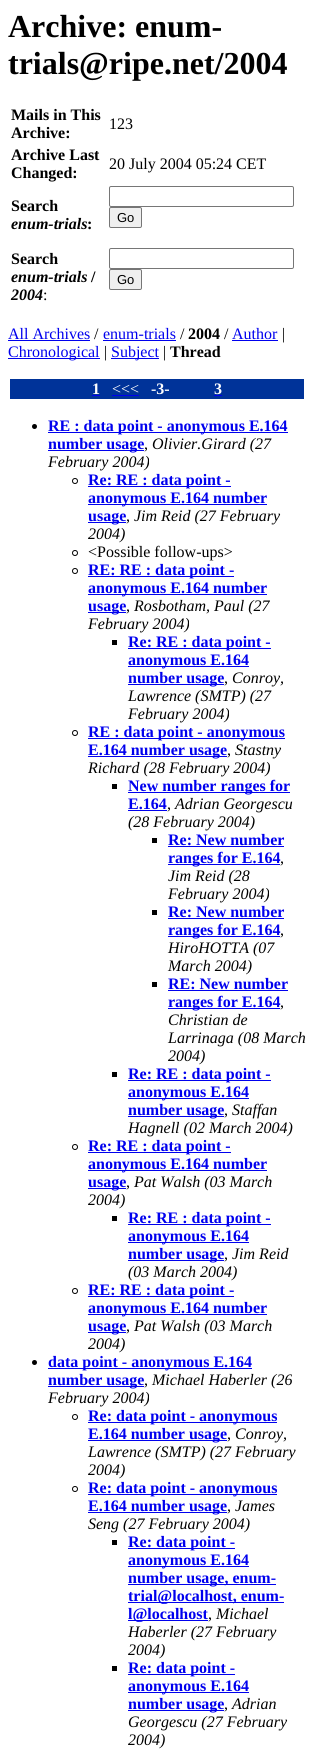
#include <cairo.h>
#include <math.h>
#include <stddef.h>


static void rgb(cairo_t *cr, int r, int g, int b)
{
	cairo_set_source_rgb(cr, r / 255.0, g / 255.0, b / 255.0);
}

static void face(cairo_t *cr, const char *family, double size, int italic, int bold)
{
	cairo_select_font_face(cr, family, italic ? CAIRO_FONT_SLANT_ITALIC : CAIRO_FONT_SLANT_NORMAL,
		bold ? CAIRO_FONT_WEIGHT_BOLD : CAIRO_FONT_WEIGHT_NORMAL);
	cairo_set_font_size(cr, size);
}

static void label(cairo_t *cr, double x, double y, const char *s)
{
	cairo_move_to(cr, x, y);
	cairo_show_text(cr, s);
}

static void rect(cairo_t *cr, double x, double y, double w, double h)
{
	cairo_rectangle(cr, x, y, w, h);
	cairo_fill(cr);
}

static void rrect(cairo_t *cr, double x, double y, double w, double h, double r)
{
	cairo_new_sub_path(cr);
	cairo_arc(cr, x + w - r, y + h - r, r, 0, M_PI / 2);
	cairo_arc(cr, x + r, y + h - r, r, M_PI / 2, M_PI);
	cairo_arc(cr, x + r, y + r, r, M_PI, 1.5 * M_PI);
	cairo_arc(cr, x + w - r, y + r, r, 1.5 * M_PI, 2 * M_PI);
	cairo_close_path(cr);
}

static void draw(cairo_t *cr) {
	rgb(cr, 255, 255, 255);
	cairo_paint(cr);
	face(cr, "Liberation Serif", 32, 0, 1);
	rgb(cr, 0, 0, 0);
	label(cr, 8, 37, "Archive: enum-");
	label(cr, 8, 74, "trials@ripe.net/2004");
	face(cr, "Liberation Serif", 16, 0, 1);
	label(cr, 11, 120, "Mails in This");
	label(cr, 11, 138, "Archive:");
	face(cr, "Liberation Serif", 16, 0, 0);
	label(cr, 109, 129, "123");
	face(cr, "Liberation Serif", 16, 0, 1);
	label(cr, 11, 160, "Archive Last");
	label(cr, 11, 178, "Changed:");
	face(cr, "Liberation Serif", 16, 0, 0);
	label(cr, 109, 169, "20 July 2004 05:24 CET");
	face(cr, "Liberation Serif", 16, 0, 1);
	label(cr, 11, 211, "Search");
	face(cr, "Liberation Serif", 16, 1, 1);
	label(cr, 11, 229, "enum-trials");
	face(cr, "Liberation Serif", 16, 0, 1);
	label(cr, 87, 229, ":");
	rrect(cr, 109.5, 186.5, 184, 20, 1.5);
	rgb(cr, 118, 118, 118);
	cairo_set_line_width(cr, 1);
	cairo_stroke(cr);
	rgb(cr, 239, 239, 239);
	rrect(cr, 109.5, 207.5, 32, 20, 1.5);
	cairo_fill_preserve(cr);
	rgb(cr, 118, 118, 118);
	cairo_stroke(cr);
	face(cr, "Liberation Sans", 13, 0, 0);
	rgb(cr, 0, 0, 0);
	label(cr, 117, 222, "Go");
	face(cr, "Liberation Serif", 16, 0, 1);
	label(cr, 11, 264, "Search");
	face(cr, "Liberation Serif", 16, 1, 1);
	label(cr, 11, 282, "enum-trials");
	face(cr, "Liberation Serif", 16, 0, 1);
	label(cr, 91, 282, "/");
	face(cr, "Liberation Serif", 16, 1, 1);
	label(cr, 11, 300, "2004");
	face(cr, "Liberation Serif", 16, 0, 0);
	label(cr, 43, 300, ":");
	rrect(cr, 109.5, 248.5, 184, 20, 1.5);
	rgb(cr, 118, 118, 118);
	cairo_stroke(cr);
	rgb(cr, 239, 239, 239);
	rrect(cr, 109.5, 269.5, 32, 20, 1.5);
	cairo_fill_preserve(cr);
	rgb(cr, 118, 118, 118);
	cairo_stroke(cr);
	face(cr, "Liberation Sans", 13, 0, 0);
	rgb(cr, 0, 0, 0);
	label(cr, 117, 284, "Go");
	face(cr, "Liberation Serif", 16, 0, 0);
	rgb(cr, 0, 0, 238);
	label(cr, 8, 339, "All Archives");
	rect(cr, 8, 340, 82, 1);
	rgb(cr, 0, 0, 0);
	label(cr, 94, 339, "/");
	rgb(cr, 0, 0, 238);
	label(cr, 103, 339, "enum-trials");
	rect(cr, 103, 340, 73, 1);
	rgb(cr, 0, 0, 0);
	label(cr, 180, 339, "/");
	face(cr, "Liberation Serif", 16, 0, 1);
	label(cr, 188, 339, "2004");
	face(cr, "Liberation Serif", 16, 0, 0);
	label(cr, 224, 339, "/");
	rgb(cr, 0, 0, 238);
	label(cr, 232, 339, "Author");
	rect(cr, 232, 340, 46, 1);
	rgb(cr, 0, 0, 0);
	label(cr, 282, 339, "|");
	rgb(cr, 0, 0, 238);
	rect(cr, 8, 358, 92, 1);
	label(cr, 8, 357, "Chronological");
	rgb(cr, 0, 0, 0);
	label(cr, 104, 357, "|");
	rgb(cr, 0, 0, 238);
	rect(cr, 111, 358, 48, 1);
	label(cr, 111, 357, "Subject");
	rgb(cr, 0, 0, 0);
	label(cr, 163, 357, "|");
	face(cr, "Liberation Serif", 16, 0, 1);
	label(cr, 170, 357, "Thread");
	rgb(cr, 0, 51, 153);
	rect(cr, 10, 379, 294, 20);
	rgb(cr, 255, 255, 255);
	label(cr, 92, 394, "1");
	rgb(cr, 0, 0, 238);
	rect(cr, 92, 395, 8, 1);
	face(cr, "Liberation Serif", 16, 0, 0);
	rgb(cr, 255, 255, 255);
	label(cr, 112, 394, "<<<");
	rgb(cr, 0, 0, 238);
	rect(cr, 112, 395, 27, 1);
	face(cr, "Liberation Serif", 16, 0, 1);
	rgb(cr, 255, 255, 255);
	label(cr, 151, 394, "-3-");
	label(cr, 214, 394, "3");
	rgb(cr, 0, 0, 238);
	rect(cr, 214, 395, 8, 1);
	rgb(cr, 0, 0, 0);
	cairo_new_path(cr);
	cairo_arc(cr, 34.5, 426.5, 2.5, 0, 2 * M_PI);
	cairo_fill(cr);
	rgb(cr, 0, 0, 238);
	rect(cr, 48, 432, 240, 1);
	label(cr, 48, 431, "RE : data point - anonymous E.164");
	rect(cr, 48, 450, 96, 1);
	label(cr, 48, 449, "number usage");
	face(cr, "Liberation Serif", 16, 0, 0);
	rgb(cr, 0, 0, 0);
	label(cr, 144, 449, ",");
	face(cr, "Liberation Serif", 16, 1, 0);
	label(cr, 152, 449, "Olivier.Girard (27");
	label(cr, 48, 467, "February 2004)");
	cairo_new_path(cr);
	cairo_arc(cr, 75, 481, 2.5, 0, 2 * M_PI);
	cairo_stroke(cr);
	rgb(cr, 0, 0, 238);
	rect(cr, 88, 486, 143, 1);
	face(cr, "Liberation Serif", 16, 0, 1);
	label(cr, 88, 485, "Re: RE : data point -");
	rect(cr, 88, 504, 179, 1);
	label(cr, 88, 503, "anonymous E.164 number");
	rect(cr, 88, 522, 38, 1);
	label(cr, 88, 521, "usage");
	face(cr, "Liberation Serif", 16, 0, 0);
	rgb(cr, 0, 0, 0);
	label(cr, 126, 521, ",");
	face(cr, "Liberation Serif", 16, 1, 0);
	label(cr, 134, 521, "Jim Reid (27 February");
	label(cr, 88, 539, "2004)");
	cairo_new_path(cr);
	cairo_arc(cr, 75, 553, 2.5, 0, 2 * M_PI);
	cairo_stroke(cr);
	face(cr, "Liberation Serif", 16, 0, 0);
	label(cr, 88, 557, "<Possible follow-ups>");
	cairo_new_path(cr);
	cairo_arc(cr, 75, 571, 2.5, 0, 2 * M_PI);
	cairo_stroke(cr);
	rgb(cr, 0, 0, 238);
	rect(cr, 88, 576, 146, 1);
	face(cr, "Liberation Serif", 16, 0, 1);
	label(cr, 88, 575, "RE: RE : data point -");
	rect(cr, 88, 594, 179, 1);
	label(cr, 88, 593, "anonymous E.164 number");
	rect(cr, 88, 612, 38, 1);
	label(cr, 88, 611, "usage");
	face(cr, "Liberation Serif", 16, 0, 0);
	rgb(cr, 0, 0, 0);
	label(cr, 126, 611, ",");
	face(cr, "Liberation Serif", 16, 1, 0);
	label(cr, 134, 611, "Rosbotham, Paul (27");
	label(cr, 88, 629, "February 2004)");
	rect(cr, 112, 640, 5, 5);
	rgb(cr, 0, 0, 238);
	rect(cr, 128, 648, 143, 1);
	face(cr, "Liberation Serif", 16, 0, 1);
	label(cr, 128, 647, "Re: RE : data point -");
	rect(cr, 128, 666, 121, 1);
	label(cr, 128, 665, "anonymous E.164");
	rect(cr, 128, 684, 96, 1);
	label(cr, 128, 683, "number usage");
	face(cr, "Liberation Serif", 16, 0, 0);
	rgb(cr, 0, 0, 0);
	label(cr, 224, 683, ",");
	face(cr, "Liberation Serif", 16, 1, 0);
	label(cr, 232, 683, "Conroy,");
	label(cr, 128, 701, "Lawrence (SMTP) (27");
	label(cr, 128, 719, "February 2004)");
	cairo_new_path(cr);
	cairo_arc(cr, 75, 733, 2.5, 0, 2 * M_PI);
	cairo_stroke(cr);
	rgb(cr, 0, 0, 238);
	rect(cr, 88, 738, 197, 1);
	face(cr, "Liberation Serif", 16, 0, 1);
	label(cr, 88, 737, "RE : data point - anonymous");
	rect(cr, 88, 756, 139, 1);
	label(cr, 88, 755, "E.164 number usage");
	face(cr, "Liberation Serif", 16, 0, 0);
	rgb(cr, 0, 0, 0);
	label(cr, 227, 755, ",");
	face(cr, "Liberation Serif", 16, 1, 0);
	label(cr, 235, 755, "Stastny");
	label(cr, 88, 773, "Richard (28 February 2004)");
	rect(cr, 112, 784, 5, 5);
	rgb(cr, 0, 0, 238);
	rect(cr, 128, 792, 162, 1);
	face(cr, "Liberation Serif", 16, 0, 1);
	label(cr, 128, 791, "New number ranges for");
	label(cr, 128, 809, "E.164");
	rect(cr, 128, 810, 39, 1);
	face(cr, "Liberation Serif", 16, 0, 0);
	rgb(cr, 0, 0, 0);
	label(cr, 167, 809, ",");
	face(cr, "Liberation Serif", 16, 1, 0);
	label(cr, 175, 809, "Adrian Georgescu");
	label(cr, 128, 827, "(28 February 2004)");
	rect(cr, 152, 838, 5, 5);
	face(cr, "Liberation Serif", 16, 0, 1);
	rgb(cr, 0, 0, 238);
	label(cr, 168, 845, "Re: New number");
	rect(cr, 168, 846, 116, 1);
	rect(cr, 168, 864, 112, 1);
	label(cr, 168, 863, "ranges for E.164");
	face(cr, "Liberation Serif", 16, 0, 0);
	rgb(cr, 0, 0, 0);
	label(cr, 280, 863, ",");
	face(cr, "Liberation Serif", 16, 1, 0);
	label(cr, 168, 881, "Jim Reid (28");
	label(cr, 168, 899, "February 2004)");
	rect(cr, 152, 910, 5, 5);
	face(cr, "Liberation Serif", 16, 0, 1);
	rgb(cr, 0, 0, 238);
	label(cr, 168, 917, "Re: New number");
	rect(cr, 168, 918, 116, 1);
	rect(cr, 168, 936, 112, 1);
	label(cr, 168, 935, "ranges for E.164");
	face(cr, "Liberation Serif", 16, 0, 0);
	rgb(cr, 0, 0, 0);
	label(cr, 280, 935, ",");
	face(cr, "Liberation Serif", 16, 1, 0);
	label(cr, 168, 953, "HiroHOTTA (07");
	label(cr, 168, 971, "March 2004)");
	rect(cr, 152, 982, 5, 5);
	face(cr, "Liberation Serif", 16, 0, 1);
	rgb(cr, 0, 0, 238);
	label(cr, 168, 989, "RE: New number");
	rect(cr, 168, 990, 120, 1);
	rect(cr, 168, 1008, 112, 1);
	label(cr, 168, 1007, "ranges for E.164");
	face(cr, "Liberation Serif", 16, 0, 0);
	rgb(cr, 0, 0, 0);
	label(cr, 280, 1007, ",");
	face(cr, "Liberation Serif", 16, 1, 0);
	label(cr, 168, 1025, "Christian de");
	label(cr, 168, 1043, "Larrinaga (08 March");
	label(cr, 168, 1061, "2004)");
	rect(cr, 112, 1072, 5, 5);
	rgb(cr, 0, 0, 238);
	rect(cr, 128, 1080, 143, 1);
	face(cr, "Liberation Serif", 16, 0, 1);
	label(cr, 128, 1079, "Re: RE : data point -");
	rect(cr, 128, 1098, 121, 1);
	label(cr, 128, 1097, "anonymous E.164");
	rect(cr, 128, 1116, 96, 1);
	label(cr, 128, 1115, "number usage");
	face(cr, "Liberation Serif", 16, 0, 0);
	rgb(cr, 0, 0, 0);
	label(cr, 224, 1115, ",");
	face(cr, "Liberation Serif", 16, 1, 0);
	label(cr, 232, 1115, "Staffan");
	label(cr, 128, 1133, "Hagnell (02 March 2004)");
	cairo_new_path(cr);
	cairo_arc(cr, 75, 1147, 2.5, 0, 2 * M_PI);
	cairo_stroke(cr);
	rgb(cr, 0, 0, 238);
	rect(cr, 88, 1152, 143, 1);
	face(cr, "Liberation Serif", 16, 0, 1);
	label(cr, 88, 1151, "Re: RE : data point -");
	rect(cr, 88, 1170, 179, 1);
	label(cr, 88, 1169, "anonymous E.164 number");
	rect(cr, 88, 1188, 38, 1);
	label(cr, 88, 1187, "usage");
	face(cr, "Liberation Serif", 16, 0, 0);
	rgb(cr, 0, 0, 0);
	label(cr, 126, 1187, ",");
	face(cr, "Liberation Serif", 16, 1, 0);
	label(cr, 134, 1187, "Pat Walsh (03 March");
	label(cr, 88, 1205, "2004)");
	rect(cr, 112, 1216, 5, 5);
	rgb(cr, 0, 0, 238);
	rect(cr, 128, 1224, 143, 1);
	face(cr, "Liberation Serif", 16, 0, 1);
	label(cr, 128, 1223, "Re: RE : data point -");
	rect(cr, 128, 1242, 121, 1);
	label(cr, 128, 1241, "anonymous E.164");
	rect(cr, 128, 1260, 96, 1);
	label(cr, 128, 1259, "number usage");
	face(cr, "Liberation Serif", 16, 0, 0);
	rgb(cr, 0, 0, 0);
	label(cr, 224, 1259, ",");
	face(cr, "Liberation Serif", 16, 1, 0);
	label(cr, 232, 1259, "Jim Reid");
	label(cr, 128, 1277, "(03 March 2004)");
	cairo_new_path(cr);
	cairo_arc(cr, 75, 1291, 2.5, 0, 2 * M_PI);
	cairo_stroke(cr);
	rgb(cr, 0, 0, 238);
	rect(cr, 88, 1296, 146, 1);
	face(cr, "Liberation Serif", 16, 0, 1);
	label(cr, 88, 1295, "RE: RE : data point -");
	rect(cr, 88, 1314, 179, 1);
	label(cr, 88, 1313, "anonymous E.164 number");
	rect(cr, 88, 1332, 38, 1);
	label(cr, 88, 1331, "usage");
	face(cr, "Liberation Serif", 16, 0, 0);
	rgb(cr, 0, 0, 0);
	label(cr, 126, 1331, ",");
	face(cr, "Liberation Serif", 16, 1, 0);
	label(cr, 134, 1331, "Pat Walsh (03 March");
	label(cr, 88, 1349, "2004)");
	cairo_new_path(cr);
	cairo_arc(cr, 34.5, 1362.5, 2.5, 0, 2 * M_PI);
	cairo_fill(cr);
	rgb(cr, 0, 0, 238);
	rect(cr, 48, 1368, 204, 1);
	face(cr, "Liberation Serif", 16, 0, 1);
	label(cr, 48, 1367, "data point - anonymous E.164");
	rect(cr, 48, 1386, 96, 1);
	label(cr, 48, 1385, "number usage");
	face(cr, "Liberation Serif", 16, 0, 0);
	rgb(cr, 0, 0, 0);
	label(cr, 144, 1385, ",");
	face(cr, "Liberation Serif", 16, 1, 0);
	label(cr, 152, 1385, "Michael Haberler (26");
	label(cr, 48, 1403, "February 2004)");
	cairo_new_path(cr);
	cairo_arc(cr, 75, 1417, 2.5, 0, 2 * M_PI);
	cairo_stroke(cr);
	rgb(cr, 0, 0, 238);
	rect(cr, 88, 1422, 189, 1);
	face(cr, "Liberation Serif", 16, 0, 1);
	label(cr, 88, 1421, "Re: data point - anonymous");
	rect(cr, 88, 1440, 139, 1);
	label(cr, 88, 1439, "E.164 number usage");
	face(cr, "Liberation Serif", 16, 0, 0);
	rgb(cr, 0, 0, 0);
	label(cr, 227, 1439, ",");
	face(cr, "Liberation Serif", 16, 1, 0);
	label(cr, 235, 1439, "Conroy,");
	label(cr, 88, 1457, "Lawrence (SMTP) (27 February");
	label(cr, 88, 1475, "2004)");
	cairo_new_path(cr);
	cairo_arc(cr, 75, 1489, 2.5, 0, 2 * M_PI);
	cairo_stroke(cr);
	rgb(cr, 0, 0, 238);
	rect(cr, 88, 1494, 189, 1);
	face(cr, "Liberation Serif", 16, 0, 1);
	label(cr, 88, 1493, "Re: data point - anonymous");
	rect(cr, 88, 1512, 139, 1);
	label(cr, 88, 1511, "E.164 number usage");
	face(cr, "Liberation Serif", 16, 0, 0);
	rgb(cr, 0, 0, 0);
	label(cr, 227, 1511, ",");
	face(cr, "Liberation Serif", 16, 1, 0);
	label(cr, 235, 1511, "James");
	label(cr, 88, 1529, "Seng (27 February 2004)");
	rect(cr, 112, 1540, 5, 5);
	rgb(cr, 0, 0, 238);
	rect(cr, 128, 1548, 107, 1);
	face(cr, "Liberation Serif", 16, 0, 1);
	label(cr, 128, 1547, "Re: data point -");
	rect(cr, 128, 1566, 121, 1);
	label(cr, 128, 1565, "anonymous E.164");
	rect(cr, 128, 1584, 148, 1);
	label(cr, 128, 1583, "number usage, enum-");
	rect(cr, 128, 1602, 156, 1);
	label(cr, 128, 1601, "trial@localhost, enum-");
	rect(cr, 128, 1620, 80, 1);
	label(cr, 128, 1619, "l@localhost");
	face(cr, "Liberation Serif", 16, 0, 0);
	rgb(cr, 0, 0, 0);
	label(cr, 208, 1619, ",");
	face(cr, "Liberation Serif", 16, 1, 0);
	label(cr, 216, 1619, "Michael");
	label(cr, 128, 1637, "Haberler (27 February");
	label(cr, 128, 1655, "2004)");
	rect(cr, 112, 1666, 5, 5);
	rgb(cr, 0, 0, 238);
	rect(cr, 128, 1674, 107, 1);
	face(cr, "Liberation Serif", 16, 0, 1);
	label(cr, 128, 1673, "Re: data point -");
	rect(cr, 128, 1692, 121, 1);
	label(cr, 128, 1691, "anonymous E.164");
	rect(cr, 128, 1710, 96, 1);
	label(cr, 128, 1709, "number usage");
	face(cr, "Liberation Serif", 16, 0, 0);
	rgb(cr, 0, 0, 0);
	label(cr, 224, 1709, ",");
	face(cr, "Liberation Serif", 16, 1, 0);
	label(cr, 232, 1709, "Adrian");
	label(cr, 128, 1727, "Georgescu (27 February");
	label(cr, 128, 1745, "2004)");
}

int main(void) {
	cairo_surface_t *surface = cairo_image_surface_create(CAIRO_FORMAT_RGB24, 314, 1756);
	cairo_t *cr = cairo_create(surface);
	cairo_font_options_t *options = cairo_font_options_create();
	cairo_font_options_set_hint_metrics(options, CAIRO_HINT_METRICS_OFF);
	cairo_font_options_set_hint_style(options, CAIRO_HINT_STYLE_NONE);
	cairo_set_font_options(cr, options);
	cairo_set_miter_limit(cr, 4);
	draw(cr);
	cairo_surface_write_to_png(surface, "render.png");
	cairo_font_options_destroy(options);
	cairo_destroy(cr);
	cairo_surface_destroy(surface);
	return 0;
}
